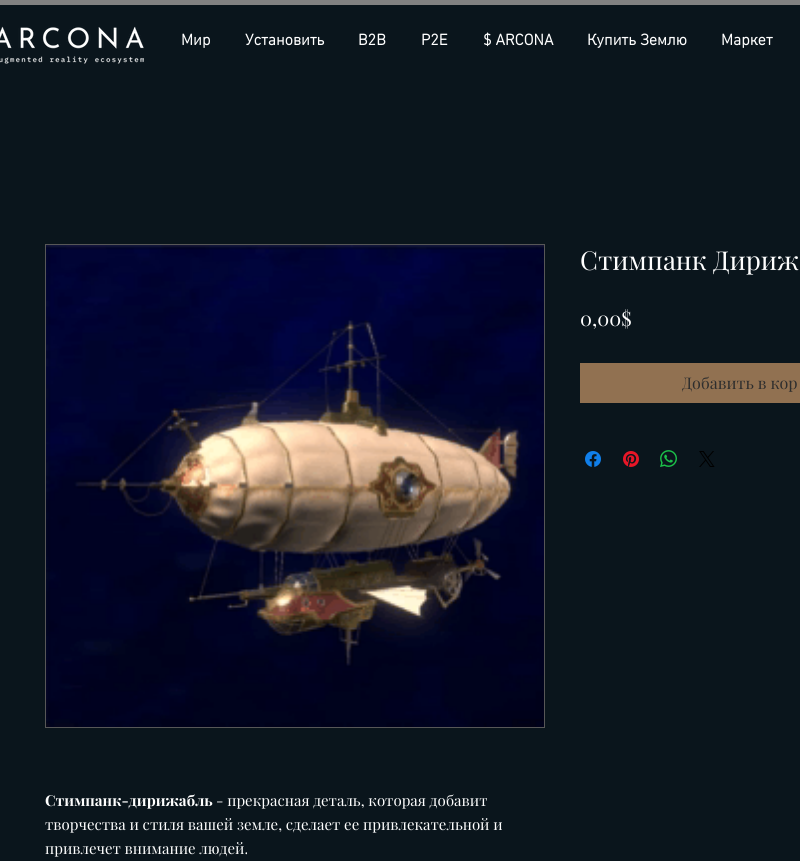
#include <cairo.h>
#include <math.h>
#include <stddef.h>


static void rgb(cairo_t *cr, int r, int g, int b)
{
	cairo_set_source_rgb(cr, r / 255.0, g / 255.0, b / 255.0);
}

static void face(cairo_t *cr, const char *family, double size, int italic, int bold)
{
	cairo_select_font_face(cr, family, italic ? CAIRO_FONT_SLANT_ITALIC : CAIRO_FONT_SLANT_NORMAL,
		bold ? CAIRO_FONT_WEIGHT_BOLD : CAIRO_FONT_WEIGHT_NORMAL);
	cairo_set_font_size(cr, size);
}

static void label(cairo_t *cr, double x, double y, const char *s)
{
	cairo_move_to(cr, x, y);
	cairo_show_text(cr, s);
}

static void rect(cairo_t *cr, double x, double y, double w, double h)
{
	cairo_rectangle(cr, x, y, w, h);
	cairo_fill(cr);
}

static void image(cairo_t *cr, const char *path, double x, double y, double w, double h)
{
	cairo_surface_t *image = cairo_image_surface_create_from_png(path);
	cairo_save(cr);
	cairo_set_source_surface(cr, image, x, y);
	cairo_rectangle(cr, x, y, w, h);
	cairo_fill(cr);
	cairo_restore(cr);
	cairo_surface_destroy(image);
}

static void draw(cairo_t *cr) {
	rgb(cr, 10, 21, 28);
	cairo_paint(cr);
	rgb(cr, 129, 129, 129);
	rect(cr, 0, 0, 800, 5);
	image(cr, "image0.png", 0, 26, 144, 38);
	face(cr, "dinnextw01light", 16, 0, 1);
	rgb(cr, 255, 255, 255);
	label(cr, 181, 45, "Мир");
	label(cr, 245, 45, "Установить");
	label(cr, 358, 45, "B2B");
	label(cr, 421, 45, "P2E");
	label(cr, 483, 45, "$ ARCONA");
	label(cr, 587, 45, "Купить Землю");
	label(cr, 721, 45, "Маркет");
	face(cr, "Playfair Display", 26, 0, 0);
	label(cr, 580, 270, "Стимпанк Дириж");
	face(cr, "Playfair Display", 20, 0, 0);
	label(cr, 580, 326, "0,00$");
	rgb(cr, 145, 113, 81);
	rect(cr, 580, 363, 220, 40);
	face(cr, "Playfair Display", 16, 0, 0);
	rgb(cr, 45, 45, 45);
	label(cr, 682, 389, "Добавить в кор");
	image(cr, "image1.png", 585, 451, 16, 16);
	image(cr, "image2.png", 623, 451, 16, 16);
	image(cr, "image3.png", 660, 450, 17, 17);
	image(cr, "image4.png", 699, 451, 16, 16);
	cairo_rectangle(cr, 45.5, 244.5, 499, 483);
	rgb(cr, 87, 87, 87);
	cairo_set_line_width(cr, 1);
	cairo_stroke(cr);
	image(cr, "image5.png", 46, 245, 498, 482);
	face(cr, "Playfair Display", 15, 0, 1);
	rgb(cr, 255, 255, 255);
	label(cr, 45, 806, "Стимпанк-дирижабль");
	face(cr, "Playfair Display", 15, 0, 0);
	label(cr, 216, 806, "- прекрасная деталь, которая добавит");
	label(cr, 45, 830, "творчества и стиля вашей земле, сделает ее привлекательной и");
	label(cr, 45, 854, "привлечет внимание людей.");
}

int main(void) {
	cairo_surface_t *surface = cairo_image_surface_create(CAIRO_FORMAT_RGB24, 800, 861);
	cairo_t *cr = cairo_create(surface);
	cairo_font_options_t *options = cairo_font_options_create();
	cairo_font_options_set_hint_metrics(options, CAIRO_HINT_METRICS_OFF);
	cairo_font_options_set_hint_style(options, CAIRO_HINT_STYLE_NONE);
	cairo_set_font_options(cr, options);
	cairo_set_miter_limit(cr, 4);
	draw(cr);
	cairo_surface_write_to_png(surface, "render.png");
	cairo_font_options_destroy(options);
	cairo_destroy(cr);
	cairo_surface_destroy(surface);
	return 0;
}
